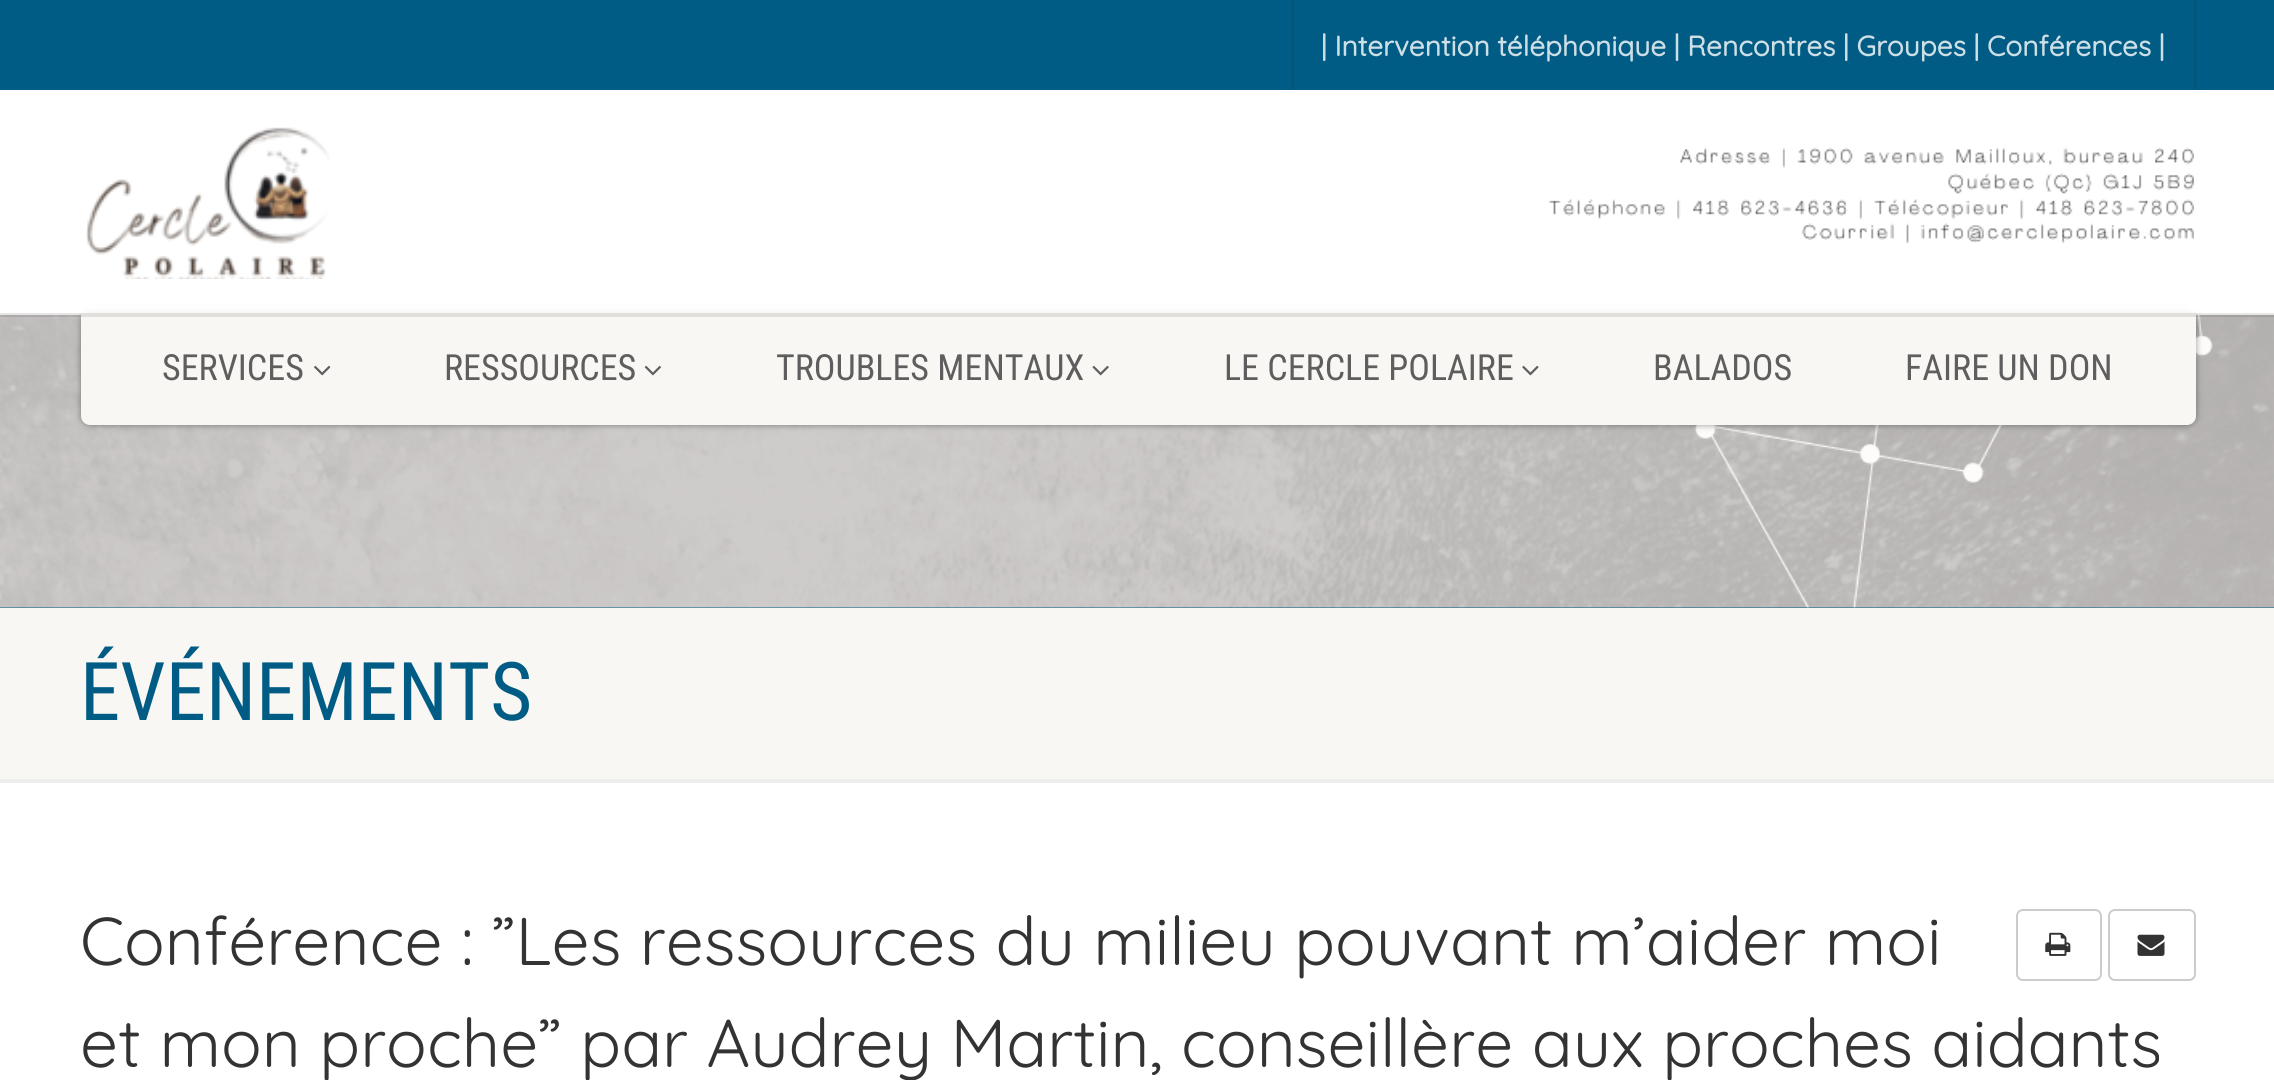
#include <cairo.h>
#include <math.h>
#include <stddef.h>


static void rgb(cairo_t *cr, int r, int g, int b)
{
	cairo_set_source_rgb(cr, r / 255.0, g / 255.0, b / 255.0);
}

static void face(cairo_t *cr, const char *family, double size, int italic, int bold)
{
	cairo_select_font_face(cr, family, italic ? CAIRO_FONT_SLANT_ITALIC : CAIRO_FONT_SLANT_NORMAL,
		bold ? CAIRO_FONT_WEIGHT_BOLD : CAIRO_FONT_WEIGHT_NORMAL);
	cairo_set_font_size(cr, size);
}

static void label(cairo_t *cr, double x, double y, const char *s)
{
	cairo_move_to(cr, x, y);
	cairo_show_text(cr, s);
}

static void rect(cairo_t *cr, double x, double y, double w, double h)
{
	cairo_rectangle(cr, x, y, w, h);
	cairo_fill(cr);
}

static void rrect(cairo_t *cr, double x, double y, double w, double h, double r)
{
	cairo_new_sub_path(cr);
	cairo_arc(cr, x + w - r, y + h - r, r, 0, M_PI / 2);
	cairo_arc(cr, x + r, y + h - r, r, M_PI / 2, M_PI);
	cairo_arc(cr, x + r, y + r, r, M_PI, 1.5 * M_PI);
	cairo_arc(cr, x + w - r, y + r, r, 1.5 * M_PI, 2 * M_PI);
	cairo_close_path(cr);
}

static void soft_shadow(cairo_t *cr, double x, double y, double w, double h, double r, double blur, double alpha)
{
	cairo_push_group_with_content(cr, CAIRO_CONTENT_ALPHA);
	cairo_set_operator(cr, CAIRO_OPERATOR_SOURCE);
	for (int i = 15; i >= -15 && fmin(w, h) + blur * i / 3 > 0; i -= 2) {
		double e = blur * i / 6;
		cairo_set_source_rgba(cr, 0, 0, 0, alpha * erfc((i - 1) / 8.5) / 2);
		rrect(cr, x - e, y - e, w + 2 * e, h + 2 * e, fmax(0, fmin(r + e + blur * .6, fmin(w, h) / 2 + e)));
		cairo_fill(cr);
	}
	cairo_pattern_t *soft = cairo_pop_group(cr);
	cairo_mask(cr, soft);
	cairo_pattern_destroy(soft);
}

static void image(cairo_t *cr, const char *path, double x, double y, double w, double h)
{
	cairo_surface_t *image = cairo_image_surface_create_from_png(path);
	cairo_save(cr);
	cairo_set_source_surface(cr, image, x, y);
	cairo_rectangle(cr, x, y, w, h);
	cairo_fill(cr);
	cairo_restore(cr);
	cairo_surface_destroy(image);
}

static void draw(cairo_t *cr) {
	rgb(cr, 255, 255, 255);
	cairo_paint(cr);
	rgb(cr, 0, 92, 132);
	rect(cr, 0, 0, 2274, 90);
	rgb(cr, 0, 85, 121);
	rect(cr, 2194, 0, 2, 90);
	rect(cr, 1292, 0, 2, 90);
	face(cr, "Quicksand", 28.1, 0, 1);
	rgb(cr, 204, 222, 230);
	label(cr, 1321, 56, "| Intervention téléphonique | Rencontres | Groupes | Conférences |");
	rgb(cr, 0, 92, 132);
	rect(cr, 0, 607, 2274, 1);
	image(cr, "image2.png", 0, 315, 2274, 293);
	rgb(cr, 0, 0, 0);
	soft_shadow(cr, 81, 313, 2115, 112, 9, 3.5, 0.4);
	rgb(cr, 248, 247, 243);
	cairo_new_path(cr);
	cairo_move_to(cr, 81, 313);
	cairo_line_to(cr, 2196, 313);
	cairo_line_to(cr, 2196, 416);
	cairo_curve_to(cr, 2196, 421, 2192, 425, 2187, 425);
	cairo_line_to(cr, 90, 425);
	cairo_curve_to(cr, 85, 425, 81, 421, 81, 416);
	cairo_close_path(cr);
	cairo_fill(cr);
	cairo_set_source_rgba(cr, 0, 0, 0, 0.1);
	cairo_new_path(cr);
	cairo_move_to(cr, 0, 313);
	cairo_line_to(cr, 0, 317);
	cairo_line_to(cr, 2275, 317);
	cairo_line_to(cr, 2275, 95);
	cairo_line_to(cr, 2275, 313);
	cairo_close_path(cr);
	cairo_fill(cr);
	cairo_set_source_rgba(cr, 1, 1, 1, 0.8);
	rect(cr, 78, 306, 2121, 7);
	image(cr, "image0.png", 86, 127, 244, 152);
	image(cr, "image1.png", 1548, 147, 646, 96);
	face(cr, "Roboto Condensed", 36, 0, 0);
	rgb(cr, 94, 94, 94);
	label(cr, 162, 380, "SERVICES");
	image(cr, "image3.png", 314, 365, 17, 11);
	label(cr, 444, 380, "RESSOURCES");
	image(cr, "image4.png", 644, 365, 17, 11);
	label(cr, 776, 380, "TROUBLES MENTAUX");
	image(cr, "image5.png", 1092, 365, 17, 11);
	label(cr, 1224, 380, "LE CERCLE POLAIRE");
	image(cr, "image6.png", 1522, 365, 17, 11);
	label(cr, 1653, 380, "BALADOS");
	label(cr, 1905, 380, "FAIRE UN DON");
	rgb(cr, 237, 237, 237);
	cairo_new_path(cr);
	cairo_move_to(cr, 0, 778);
	cairo_line_to(cr, 0, 783);
	cairo_line_to(cr, 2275, 783);
	cairo_line_to(cr, 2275, 612);
	cairo_line_to(cr, 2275, 778);
	cairo_close_path(cr);
	cairo_fill(cr);
	rgb(cr, 248, 247, 243);
	rect(cr, 0, 608, 2274, 171);
	face(cr, "Roboto Condensed", 81, 0, 0);
	rgb(cr, 0, 92, 132);
	label(cr, 80, 720, "ÉVÉNEMENTS");
	rrect(cr, 2017, 910, 84, 70, 6);
	rgb(cr, 204, 204, 204);
	cairo_stroke(cr);
	image(cr, "image7.png", 2045, 932, 26, 24);
	rrect(cr, 2109, 910, 86, 70, 6);
	cairo_stroke(cr);
	image(cr, "image8.png", 2137, 934, 28, 22);
	face(cr, "Quicksand Light", 67.5, 0, 0);
	rgb(cr, 51, 51, 51);
	label(cr, 80, 965, "Conférence : ”Les ressources du milieu pouvant m’aider moi");
	label(cr, 80, 1067, "et mon proche” par Audrey Martin, conseillère aux proches aidants");
}

int main(void) {
	cairo_surface_t *surface = cairo_image_surface_create(CAIRO_FORMAT_RGB24, 2274, 1080);
	cairo_t *cr = cairo_create(surface);
	cairo_font_options_t *options = cairo_font_options_create();
	cairo_font_options_set_hint_metrics(options, CAIRO_HINT_METRICS_OFF);
	cairo_font_options_set_hint_style(options, CAIRO_HINT_STYLE_NONE);
	cairo_set_font_options(cr, options);
	cairo_set_miter_limit(cr, 4);
	draw(cr);
	cairo_surface_write_to_png(surface, "render.png");
	cairo_font_options_destroy(options);
	cairo_destroy(cr);
	cairo_surface_destroy(surface);
	return 0;
}
